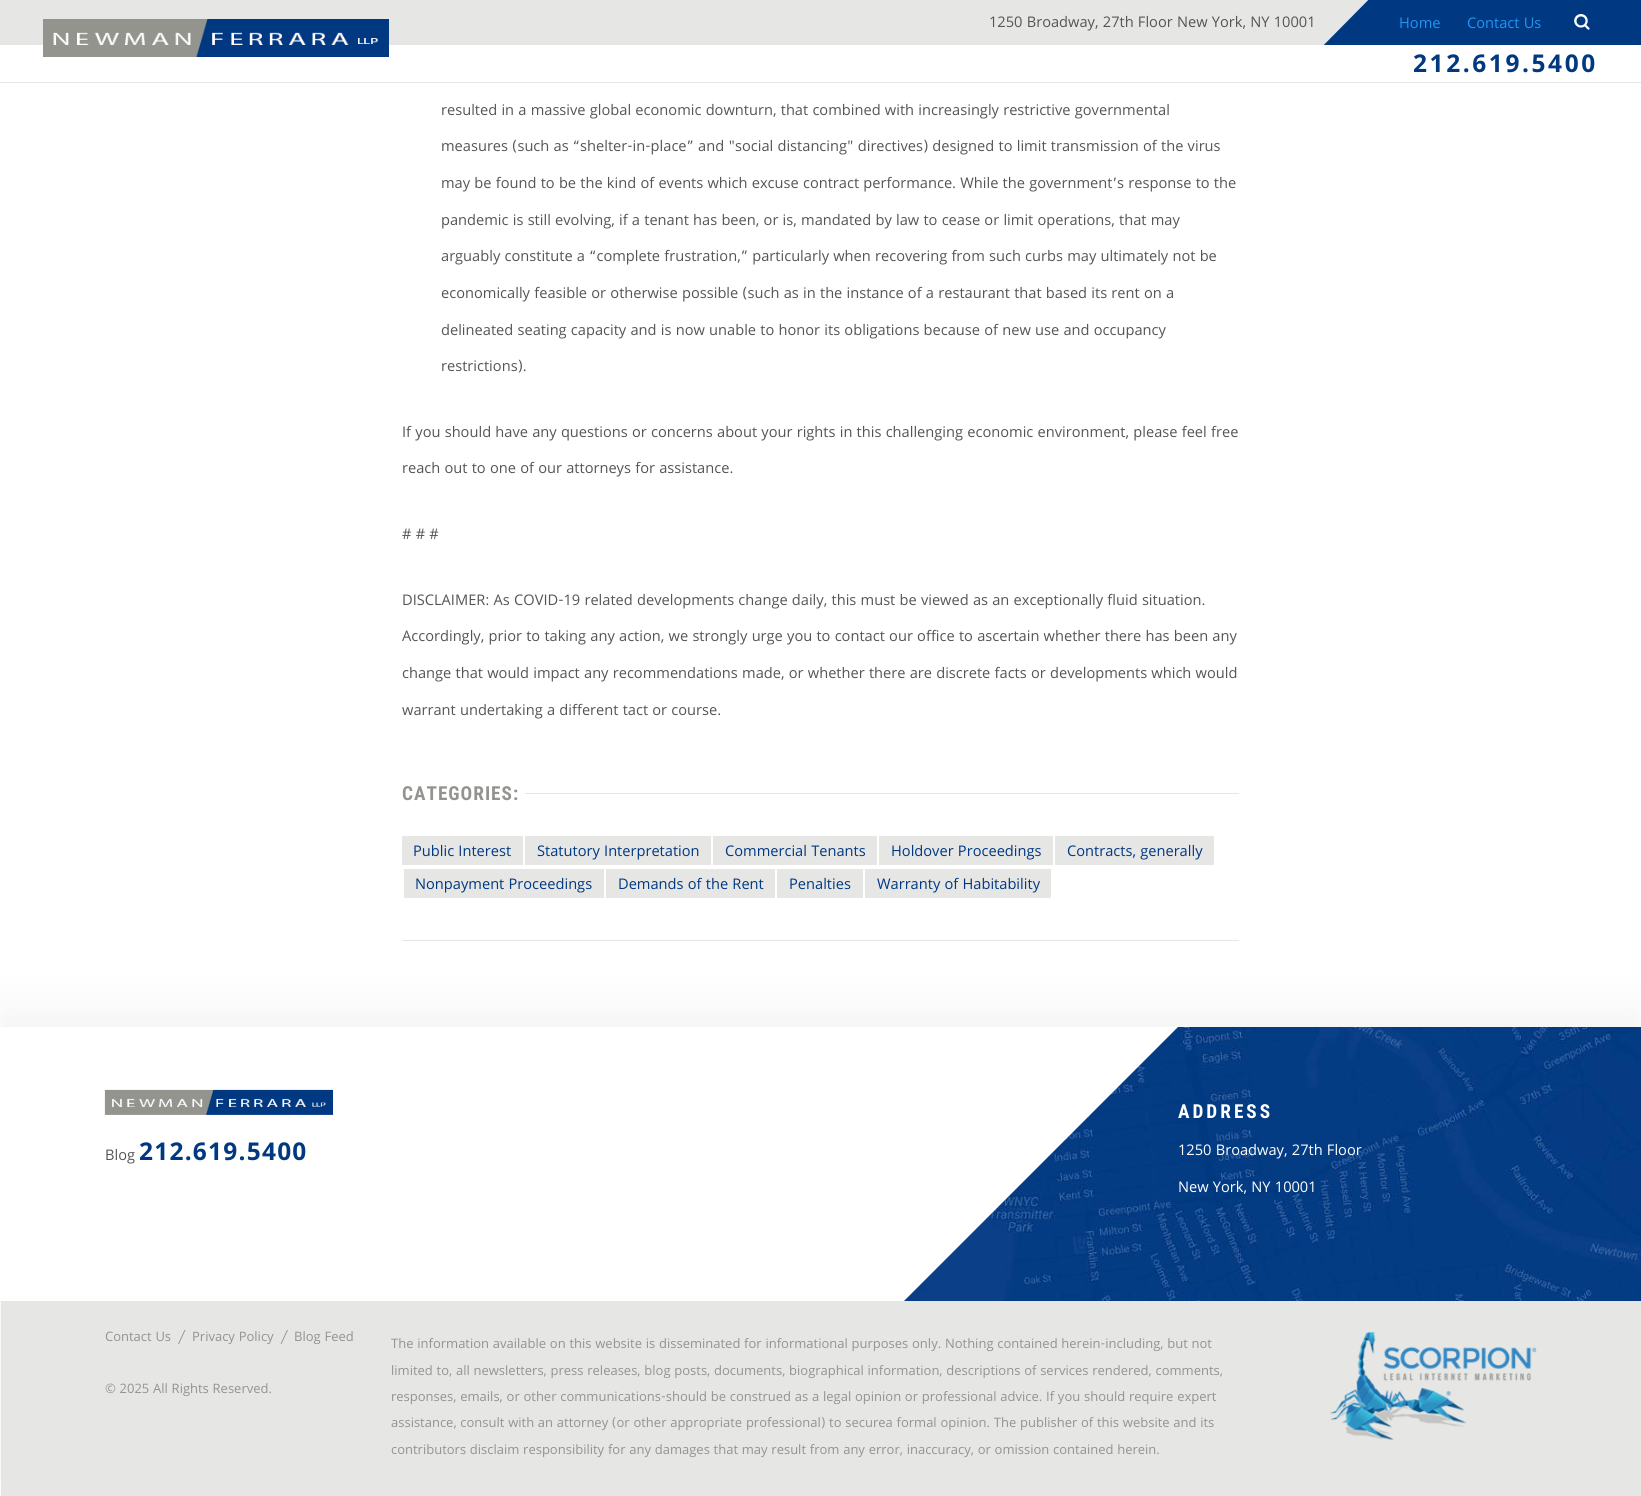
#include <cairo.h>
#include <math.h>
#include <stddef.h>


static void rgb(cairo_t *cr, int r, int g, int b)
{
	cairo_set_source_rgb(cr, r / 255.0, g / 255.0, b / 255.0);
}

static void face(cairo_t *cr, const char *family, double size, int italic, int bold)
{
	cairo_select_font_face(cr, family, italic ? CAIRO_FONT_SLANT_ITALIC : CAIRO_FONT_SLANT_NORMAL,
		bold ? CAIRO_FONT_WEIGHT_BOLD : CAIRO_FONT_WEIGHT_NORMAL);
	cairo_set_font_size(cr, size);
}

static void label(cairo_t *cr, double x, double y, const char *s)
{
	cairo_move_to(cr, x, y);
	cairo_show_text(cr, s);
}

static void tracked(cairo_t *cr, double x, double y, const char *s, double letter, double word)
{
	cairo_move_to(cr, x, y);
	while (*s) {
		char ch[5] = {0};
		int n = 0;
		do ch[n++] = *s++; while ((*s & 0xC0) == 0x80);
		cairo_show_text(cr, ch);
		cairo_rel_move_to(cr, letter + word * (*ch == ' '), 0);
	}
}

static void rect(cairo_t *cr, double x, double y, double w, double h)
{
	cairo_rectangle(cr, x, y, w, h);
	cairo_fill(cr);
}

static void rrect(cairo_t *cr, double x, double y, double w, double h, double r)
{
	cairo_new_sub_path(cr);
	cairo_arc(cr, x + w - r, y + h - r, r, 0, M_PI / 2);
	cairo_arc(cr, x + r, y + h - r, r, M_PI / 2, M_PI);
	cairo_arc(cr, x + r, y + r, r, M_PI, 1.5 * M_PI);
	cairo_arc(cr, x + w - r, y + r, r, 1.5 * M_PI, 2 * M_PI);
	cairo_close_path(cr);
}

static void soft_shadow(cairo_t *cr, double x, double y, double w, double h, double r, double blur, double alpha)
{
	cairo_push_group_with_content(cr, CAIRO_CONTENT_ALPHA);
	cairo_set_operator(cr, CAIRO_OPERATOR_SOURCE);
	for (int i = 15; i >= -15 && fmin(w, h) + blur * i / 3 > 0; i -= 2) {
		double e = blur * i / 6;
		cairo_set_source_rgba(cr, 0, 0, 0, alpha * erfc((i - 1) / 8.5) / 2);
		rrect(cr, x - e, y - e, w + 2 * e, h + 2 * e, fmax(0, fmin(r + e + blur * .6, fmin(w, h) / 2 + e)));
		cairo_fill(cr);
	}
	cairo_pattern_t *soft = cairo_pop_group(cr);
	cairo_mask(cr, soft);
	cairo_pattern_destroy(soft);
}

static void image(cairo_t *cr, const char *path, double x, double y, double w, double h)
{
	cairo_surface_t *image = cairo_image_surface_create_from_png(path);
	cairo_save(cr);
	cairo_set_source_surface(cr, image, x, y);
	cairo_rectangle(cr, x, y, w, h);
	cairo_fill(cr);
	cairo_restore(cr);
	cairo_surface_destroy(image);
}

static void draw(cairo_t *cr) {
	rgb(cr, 255, 255, 255);
	cairo_paint(cr);
	rgb(cr, 230, 230, 229);
	rect(cr, 0, 0, 1369, 45);
	face(cr, "Khula", 15.7, 0, 0);
	rgb(cr, 85, 85, 85);
	label(cr, 989, 27, "1250 Broadway, 27th Floor New York, NY 10001");
	rgb(cr, 0, 56, 130);
	cairo_new_path(cr);
	cairo_move_to(cr, 1391, -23);
	cairo_line_to(cr, 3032, -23);
	cairo_line_to(cr, 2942, 68);
	cairo_line_to(cr, 1301, 68);
	cairo_close_path(cr);
	cairo_fill(cr);
	rgb(cr, 33, 150, 243);
	label(cr, 1399, 28, "Home");
	label(cr, 1467, 28, "Contact Us");
	image(cr, "image0.png", 1574, 14, 16, 16);
	rgb(cr, 255, 255, 255);
	rect(cr, 1301, 45, 340, 23);
	rgb(cr, 230, 230, 229);
	rect(cr, 0, 82, 1641, 1);
	image(cr, "image1.png", 43, 19, 346, 38);
	face(cr, "Khula", 26.25, 0, 1);
	rgb(cr, 0, 56, 130);
	tracked(cr, 1413, 72, "212.619.5400", 2.6, 0);
	face(cr, "Khula", 15.7, 0, 0);
	rgb(cr, 85, 85, 85);
	label(cr, 441, 115, "resulted in a massive global economic downturn, that combined with increasingly restrictive governmental");
	label(cr, 441, 151, "measures (such as “shelter-in-place” and \"social distancing\" directives) designed to limit transmission of the virus");
	label(cr, 441, 188, "may be found to be the kind of events which excuse contract performance. While the government’s response to the");
	label(cr, 441, 225, "pandemic is still evolving, if a tenant has been, or is, mandated by law to cease or limit operations, that may");
	label(cr, 441, 261, "arguably constitute a “complete frustration,” particularly when recovering from such curbs may ultimately not be");
	label(cr, 441, 298, "economically feasible or otherwise possible (such as in the instance of a restaurant that based its rent on a");
	label(cr, 441, 335, "delineated seating capacity and is now unable to honor its obligations because of new use and occupancy");
	label(cr, 441, 371, "restrictions).");
	label(cr, 402, 437, "If you should have any questions or concerns about your rights in this challenging economic environment, please feel free");
	label(cr, 402, 473, "reach out to one of our attorneys for assistance.");
	label(cr, 402, 539, "# # #");
	label(cr, 402, 605, "DISCLAIMER: As COVID-19 related developments change daily, this must be viewed as an exceptionally fluid situation.");
	label(cr, 402, 641, "Accordingly, prior to taking any action, we strongly urge you to contact our office to ascertain whether there has been any");
	label(cr, 402, 678, "change that would impact any recommendations made, or whether there are discrete facts or developments which would");
	label(cr, 402, 715, "warrant undertaking a different tact or course.");
	face(cr, "Roboto Condensed", 19.25, 0, 1);
	rgb(cr, 147, 148, 142);
	tracked(cr, 402, 800, "CATEGORIES:", 1, 0);
	rgb(cr, 230, 230, 229);
	rect(cr, 525, 793, 714, 1);
	rect(cr, 402, 940, 837, 1);
	rect(cr, 402, 836, 121, 29);
	face(cr, "Khula", 15.7, 0, 0);
	rgb(cr, 0, 56, 130);
	label(cr, 413, 856, "Public Interest");
	rgb(cr, 230, 230, 229);
	rect(cr, 525, 836, 186, 29);
	rgb(cr, 0, 56, 130);
	label(cr, 537, 856, "Statutory Interpretation");
	rgb(cr, 230, 230, 229);
	rect(cr, 713, 836, 164, 29);
	rgb(cr, 0, 56, 130);
	label(cr, 725, 856, "Commercial Tenants");
	rgb(cr, 230, 230, 229);
	rect(cr, 879, 836, 174, 29);
	rgb(cr, 0, 56, 130);
	label(cr, 891, 856, "Holdover Proceedings");
	rgb(cr, 230, 230, 229);
	rect(cr, 1055, 836, 159, 29);
	rgb(cr, 0, 56, 130);
	label(cr, 1067, 856, "Contracts, generally");
	rgb(cr, 230, 230, 229);
	rect(cr, 404, 869, 200, 29);
	rgb(cr, 0, 56, 130);
	label(cr, 415, 889, "Nonpayment Proceedings");
	rgb(cr, 230, 230, 229);
	rect(cr, 606, 869, 169, 29);
	rgb(cr, 0, 56, 130);
	label(cr, 618, 889, "Demands of the Rent");
	rgb(cr, 230, 230, 229);
	rect(cr, 777, 869, 86, 29);
	rgb(cr, 0, 56, 130);
	label(cr, 789, 889, "Penalties");
	rgb(cr, 230, 230, 229);
	rect(cr, 865, 869, 186, 29);
	rgb(cr, 0, 56, 130);
	label(cr, 877, 889, "Warranty of Habitability");
	rgb(cr, 0, 0, 0);
	soft_shadow(cr, 0, 1011, 1641, 469, 0, 23.5, 0.05);
	image(cr, "image2.png", 904, 1027, 737, 274);
	rgb(cr, 255, 255, 255);
	cairo_new_path(cr);
	cairo_move_to(cr, -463, 1027);
	cairo_line_to(cr, 1178, 1027);
	cairo_line_to(cr, 904, 1301);
	cairo_line_to(cr, -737, 1301);
	cairo_close_path(cr);
	cairo_fill(cr);
	image(cr, "image3.png", 104, 1089, 230, 26);
	rgb(cr, 85, 85, 85);
	label(cr, 105, 1160, "Blog");
	face(cr, "Khula", 26.25, 0, 1);
	rgb(cr, 0, 56, 130);
	tracked(cr, 139, 1160, "212.619.5400", 1.25, 0);
	face(cr, "Roboto Condensed", 19.25, 0, 1);
	rgb(cr, 255, 255, 255);
	tracked(cr, 1178, 1118, "ADDRESS", 3, 0);
	face(cr, "Khula", 15.7, 0, 0);
	label(cr, 1178, 1155, "1250 Broadway, 27th Floor");
	label(cr, 1178, 1192, "New York, NY 10001");
	rgb(cr, 230, 230, 229);
	rect(cr, 1, 1301, 1640, 195);
	face(cr, "Khula", 13.95, 0, 0);
	rgb(cr, 147, 148, 142);
	label(cr, 105, 1341, "Contact Us");
	cairo_new_path(cr);
	cairo_move_to(cr, 184.5, 1330);
	cairo_line_to(cr, 185.5, 1330);
	cairo_line_to(cr, 179, 1344);
	cairo_line_to(cr, 178, 1344);
	cairo_close_path(cr);
	cairo_fill(cr);
	label(cr, 192, 1341, "Privacy Policy");
	cairo_new_path(cr);
	cairo_move_to(cr, 287, 1330);
	cairo_line_to(cr, 288, 1330);
	cairo_line_to(cr, 281.5, 1344);
	cairo_line_to(cr, 280.5, 1344);
	cairo_close_path(cr);
	cairo_fill(cr);
	label(cr, 294, 1341, "Blog Feed");
	label(cr, 105, 1393, "© 2025 All Rights Reserved.");
	label(cr, 391, 1348, "The information available on this website is disseminated for informational purposes only. Nothing contained herein-including, but not");
	label(cr, 391, 1375, "limited to, all newsletters, press releases, blog posts, documents, biographical information, descriptions of services rendered, comments,");
	label(cr, 391, 1401, "responses, emails, or other communications-should be construed as a legal opinion or professional advice. If you should require expert");
	label(cr, 391, 1427, "assistance, consult with an attorney (or other appropriate professional) to securea formal opinion. The publisher of this website and its");
	label(cr, 391, 1454, "contributors disclaim responsibility for any damages that may result from any error, inaccuracy, or omission contained herein.");
	image(cr, "image4.png", 1330, 1332, 207, 109);
}

int main(void) {
	cairo_surface_t *surface = cairo_image_surface_create(CAIRO_FORMAT_RGB24, 1641, 1496);
	cairo_t *cr = cairo_create(surface);
	cairo_font_options_t *options = cairo_font_options_create();
	cairo_font_options_set_hint_metrics(options, CAIRO_HINT_METRICS_OFF);
	cairo_font_options_set_hint_style(options, CAIRO_HINT_STYLE_NONE);
	cairo_set_font_options(cr, options);
	cairo_set_miter_limit(cr, 4);
	draw(cr);
	cairo_surface_write_to_png(surface, "render.png");
	cairo_font_options_destroy(options);
	cairo_destroy(cr);
	cairo_surface_destroy(surface);
	return 0;
}
